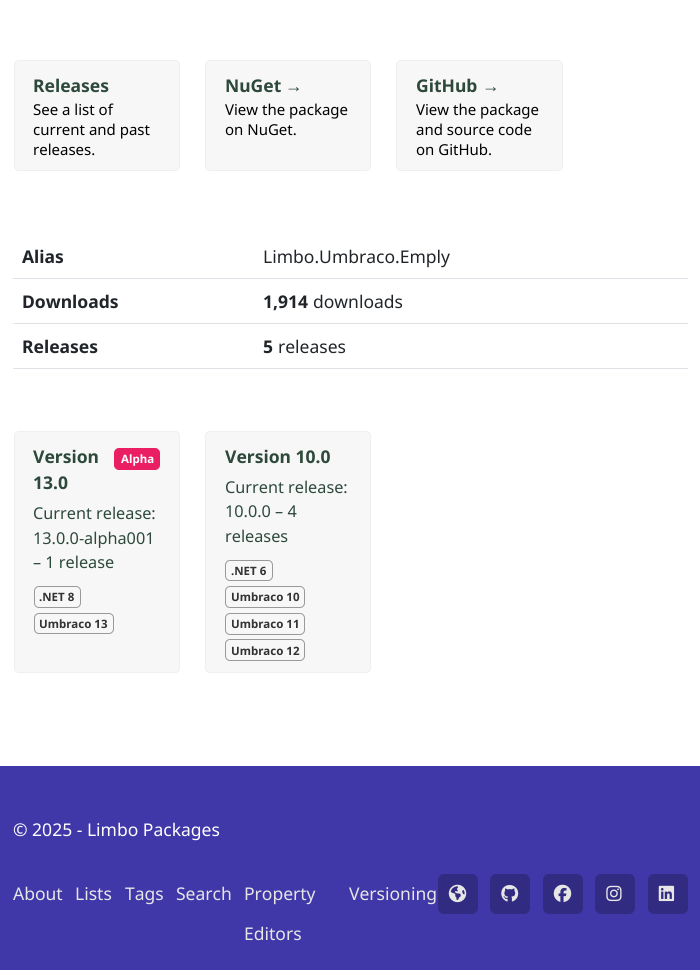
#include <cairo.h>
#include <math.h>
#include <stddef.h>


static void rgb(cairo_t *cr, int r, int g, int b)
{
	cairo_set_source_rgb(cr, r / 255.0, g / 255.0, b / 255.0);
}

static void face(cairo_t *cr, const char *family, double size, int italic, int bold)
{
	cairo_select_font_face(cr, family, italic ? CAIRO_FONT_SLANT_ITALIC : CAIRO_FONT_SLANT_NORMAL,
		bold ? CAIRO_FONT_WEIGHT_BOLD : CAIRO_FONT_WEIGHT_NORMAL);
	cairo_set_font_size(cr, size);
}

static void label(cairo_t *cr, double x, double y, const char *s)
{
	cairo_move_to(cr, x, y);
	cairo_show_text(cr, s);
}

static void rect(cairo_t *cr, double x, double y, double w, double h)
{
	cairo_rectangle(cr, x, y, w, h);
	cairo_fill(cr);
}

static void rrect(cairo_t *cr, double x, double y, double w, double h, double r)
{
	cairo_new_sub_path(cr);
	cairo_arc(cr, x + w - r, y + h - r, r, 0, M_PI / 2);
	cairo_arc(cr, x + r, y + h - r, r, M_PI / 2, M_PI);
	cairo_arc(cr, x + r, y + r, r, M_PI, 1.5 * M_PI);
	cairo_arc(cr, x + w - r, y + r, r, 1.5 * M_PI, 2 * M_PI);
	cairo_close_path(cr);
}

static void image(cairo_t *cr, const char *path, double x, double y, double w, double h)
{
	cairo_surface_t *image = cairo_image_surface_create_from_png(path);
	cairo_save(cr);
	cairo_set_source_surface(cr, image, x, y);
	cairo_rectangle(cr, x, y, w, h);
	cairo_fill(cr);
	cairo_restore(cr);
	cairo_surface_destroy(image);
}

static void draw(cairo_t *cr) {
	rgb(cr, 64, 56, 168);
	cairo_paint(cr);
	rgb(cr, 255, 255, 255);
	rect(cr, 0, 0, 700, 766);
	rgb(cr, 247, 247, 247);
	rrect(cr, 14.5, 60.5, 165, 110, 4.5);
	cairo_fill_preserve(cr);
	rgb(cr, 239, 239, 239);
	cairo_set_line_width(cr, 1);
	cairo_stroke(cr);
	face(cr, "Noto Sans", 17.5, 0, 1);
	rgb(cr, 45, 73, 59);
	label(cr, 33, 92, "Releases");
	face(cr, "Noto Sans", 15, 0, 0);
	rgb(cr, 0, 0, 0);
	label(cr, 33, 115, "See a list of");
	label(cr, 33, 135, "current and past");
	label(cr, 33, 155, "releases.");
	rgb(cr, 247, 247, 247);
	rrect(cr, 205.5, 60.5, 165, 110, 4.5);
	cairo_fill_preserve(cr);
	rgb(cr, 239, 239, 239);
	cairo_stroke(cr);
	face(cr, "Noto Sans", 17.5, 0, 1);
	rgb(cr, 45, 73, 59);
	label(cr, 225, 92, "NuGet");
	face(cr, "Liberation Sans", 17.5, 0, 0);
	label(cr, 285, 92, "→");
	face(cr, "Noto Sans", 15, 0, 0);
	rgb(cr, 0, 0, 0);
	label(cr, 225, 115, "View the package");
	label(cr, 225, 135, "on NuGet.");
	rgb(cr, 247, 247, 247);
	rrect(cr, 396.5, 60.5, 166, 110, 4.5);
	cairo_fill_preserve(cr);
	rgb(cr, 239, 239, 239);
	cairo_stroke(cr);
	face(cr, "Noto Sans", 17.5, 0, 1);
	rgb(cr, 45, 73, 59);
	label(cr, 416, 92, "GitHub");
	face(cr, "Liberation Sans", 17.5, 0, 0);
	label(cr, 482, 92, "→");
	face(cr, "Noto Sans", 15, 0, 0);
	rgb(cr, 0, 0, 0);
	label(cr, 416, 115, "View the package");
	label(cr, 416, 135, "and source code");
	label(cr, 416, 155, "on GitHub.");
	face(cr, "Noto Sans", 17.5, 0, 1);
	rgb(cr, 33, 37, 41);
	label(cr, 22, 263, "Alias");
	rgb(cr, 222, 226, 230);
	rect(cr, 13, 278, 675, 1);
	face(cr, "Noto Sans", 17.5, 0, 0);
	rgb(cr, 33, 37, 41);
	label(cr, 263, 263, "Limbo.Umbraco.Emply");
	face(cr, "Noto Sans", 17.5, 0, 1);
	label(cr, 22, 308, "Downloads");
	rgb(cr, 222, 226, 230);
	rect(cr, 13, 323, 675, 1);
	rgb(cr, 33, 37, 41);
	label(cr, 263, 308, "1,914");
	face(cr, "Noto Sans", 17.5, 0, 0);
	label(cr, 313, 308, "downloads");
	face(cr, "Noto Sans", 17.5, 0, 1);
	label(cr, 22, 353, "Releases");
	rgb(cr, 222, 226, 230);
	rect(cr, 13, 368, 675, 1);
	rgb(cr, 33, 37, 41);
	label(cr, 263, 353, "5");
	face(cr, "Noto Sans", 17.5, 0, 0);
	label(cr, 278, 353, "releases");
	rgb(cr, 247, 247, 247);
	rrect(cr, 14.5, 431.5, 165, 241, 4.5);
	cairo_fill_preserve(cr);
	rgb(cr, 239, 239, 239);
	cairo_stroke(cr);
	face(cr, "Noto Sans", 17.5, 0, 1);
	rgb(cr, 45, 73, 59);
	label(cr, 33, 463, "Version");
	rgb(cr, 233, 30, 99);
	rrect(cr, 114.5, 448.5, 45, 21, 4.5);
	cairo_fill_preserve(cr);
	cairo_stroke(cr);
	face(cr, "Noto Sans", 11.5, 0, 1);
	rgb(cr, 255, 255, 255);
	label(cr, 121, 463, "Alpha");
	face(cr, "Noto Sans", 17.5, 0, 1);
	rgb(cr, 45, 73, 59);
	label(cr, 33, 489, "13.0");
	face(cr, "Noto Sans", 16.25, 0, 0);
	label(cr, 33, 519, "Current release:");
	label(cr, 33, 544, "13.0.0-alpha001");
	label(cr, 33, 568, "– 1 release");
	rrect(cr, 34.5, 586.5, 46, 21, 4.5);
	rgb(cr, 153, 153, 153);
	cairo_stroke(cr);
	face(cr, "Noto Sans", 11.5, 0, 1);
	rgb(cr, 51, 51, 51);
	label(cr, 39, 601, ".NET 8");
	rrect(cr, 34.5, 613.5, 79, 20, 4.5);
	rgb(cr, 153, 153, 153);
	cairo_stroke(cr);
	rgb(cr, 51, 51, 51);
	label(cr, 39, 628, "Umbraco 13");
	rgb(cr, 247, 247, 247);
	rrect(cr, 205.5, 431.5, 165, 241, 4.5);
	cairo_fill_preserve(cr);
	rgb(cr, 239, 239, 239);
	cairo_stroke(cr);
	face(cr, "Noto Sans", 17.5, 0, 1);
	rgb(cr, 45, 73, 59);
	label(cr, 225, 463, "Version 10.0");
	face(cr, "Noto Sans", 16.25, 0, 0);
	label(cr, 225, 493, "Current release:");
	label(cr, 225, 517, "10.0.0 – 4");
	label(cr, 225, 542, "releases");
	rrect(cr, 225.5, 560.5, 47, 20, 4.5);
	rgb(cr, 153, 153, 153);
	cairo_stroke(cr);
	face(cr, "Noto Sans", 11.5, 0, 1);
	rgb(cr, 51, 51, 51);
	label(cr, 231, 575, ".NET 6");
	rrect(cr, 225.5, 586.5, 79, 21, 4.5);
	rgb(cr, 153, 153, 153);
	cairo_stroke(cr);
	rgb(cr, 51, 51, 51);
	label(cr, 231, 601, "Umbraco 10");
	rrect(cr, 225.5, 613.5, 79, 21, 4.5);
	rgb(cr, 153, 153, 153);
	cairo_stroke(cr);
	rgb(cr, 51, 51, 51);
	label(cr, 231, 628, "Umbraco 11");
	rrect(cr, 225.5, 639.5, 79, 21, 4.5);
	rgb(cr, 153, 153, 153);
	cairo_stroke(cr);
	rgb(cr, 51, 51, 51);
	label(cr, 231, 655, "Umbraco 12");
	face(cr, "Noto Sans", 17.5, 0, 0);
	rgb(cr, 255, 255, 255);
	label(cr, 13, 836, "© 2025 - Limbo Packages");
	rgb(cr, 230, 230, 230);
	label(cr, 13, 900, "About");
	label(cr, 75, 900, "Lists");
	label(cr, 125, 900, "Tags");
	label(cr, 176, 900, "Search");
	label(cr, 244, 900, "Property");
	label(cr, 244, 940, "Editors");
	label(cr, 349, 900, "Versioning");
	rgb(cr, 49, 43, 130);
	rrect(cr, 438, 874, 40, 40, 6);
	cairo_fill(cr);
	image(cr, "image0.png", 448, 884, 19, 19);
	rrect(cr, 490, 874, 40, 40, 6);
	cairo_fill(cr);
	image(cr, "image1.png", 501, 885, 18, 17);
	rrect(cr, 543, 874, 40, 40, 6);
	cairo_fill(cr);
	image(cr, "image2.png", 553, 884, 19, 19);
	rrect(cr, 595, 874, 40, 40, 6);
	cairo_fill(cr);
	image(cr, "image3.png", 606, 885, 16, 17);
	rrect(cr, 648, 874, 40, 40, 6);
	cairo_fill(cr);
	image(cr, "image4.png", 658, 885, 17, 17);
}

int main(void) {
	cairo_surface_t *surface = cairo_image_surface_create(CAIRO_FORMAT_RGB24, 700, 970);
	cairo_t *cr = cairo_create(surface);
	cairo_font_options_t *options = cairo_font_options_create();
	cairo_font_options_set_hint_metrics(options, CAIRO_HINT_METRICS_OFF);
	cairo_font_options_set_hint_style(options, CAIRO_HINT_STYLE_NONE);
	cairo_set_font_options(cr, options);
	cairo_set_miter_limit(cr, 4);
	draw(cr);
	cairo_surface_write_to_png(surface, "render.png");
	cairo_font_options_destroy(options);
	cairo_destroy(cr);
	cairo_surface_destroy(surface);
	return 0;
}
